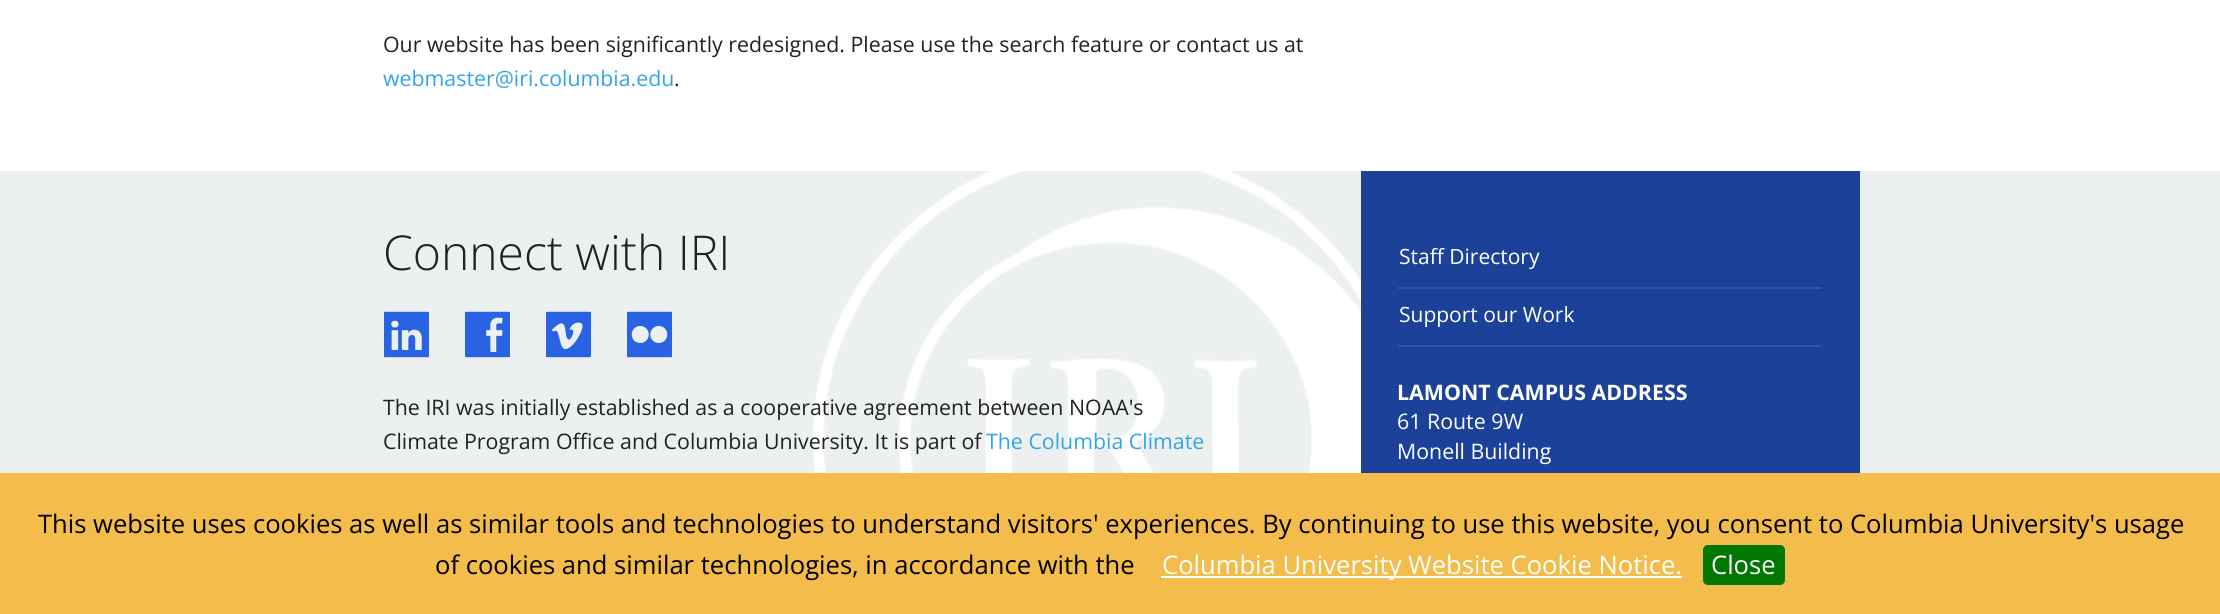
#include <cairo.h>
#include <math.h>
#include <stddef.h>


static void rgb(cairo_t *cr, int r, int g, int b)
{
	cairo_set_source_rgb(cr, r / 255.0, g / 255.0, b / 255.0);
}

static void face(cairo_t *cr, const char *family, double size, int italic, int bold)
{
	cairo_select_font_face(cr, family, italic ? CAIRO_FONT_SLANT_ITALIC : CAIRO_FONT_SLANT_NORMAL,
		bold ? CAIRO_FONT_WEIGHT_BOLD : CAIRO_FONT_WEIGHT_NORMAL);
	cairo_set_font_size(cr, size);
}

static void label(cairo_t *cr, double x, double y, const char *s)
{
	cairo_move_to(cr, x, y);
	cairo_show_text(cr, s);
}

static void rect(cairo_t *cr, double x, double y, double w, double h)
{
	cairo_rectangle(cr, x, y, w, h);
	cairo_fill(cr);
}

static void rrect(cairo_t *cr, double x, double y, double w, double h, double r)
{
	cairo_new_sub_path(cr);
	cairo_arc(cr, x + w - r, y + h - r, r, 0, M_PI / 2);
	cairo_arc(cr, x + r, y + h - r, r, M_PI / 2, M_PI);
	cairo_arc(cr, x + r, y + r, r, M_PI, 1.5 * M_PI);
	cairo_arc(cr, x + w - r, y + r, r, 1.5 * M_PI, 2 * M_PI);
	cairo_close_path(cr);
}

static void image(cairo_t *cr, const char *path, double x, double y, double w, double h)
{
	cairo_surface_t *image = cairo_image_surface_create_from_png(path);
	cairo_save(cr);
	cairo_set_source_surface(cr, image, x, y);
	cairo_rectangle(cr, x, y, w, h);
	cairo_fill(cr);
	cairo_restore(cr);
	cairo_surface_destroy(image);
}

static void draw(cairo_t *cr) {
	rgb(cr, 255, 255, 255);
	cairo_paint(cr);
	face(cr, "Open Sans", 21.35, 0, 0);
	rgb(cr, 34, 34, 34);
	label(cr, 383, 52, "Our website has been significantly redesigned. Please use the search feature or contact us at");
	rgb(cr, 50, 165, 231);
	label(cr, 383, 86, "webmaster@iri.columbia.edu");
	rgb(cr, 34, 34, 34);
	label(cr, 674, 86, ".");
	rgb(cr, 236, 240, 241);
	rect(cr, 0, 171, 2220, 302);
	image(cr, "image0.png", 813, 171, 548, 302);
	face(cr, "Open Sans Light", 48, 0, 0);
	rgb(cr, 34, 34, 34);
	label(cr, 383, 270, "Connect with IRI");
	image(cr, "image1.png", 384, 311, 45, 47);
	image(cr, "image2.png", 465, 311, 45, 47);
	image(cr, "image3.png", 546, 311, 45, 47);
	image(cr, "image4.png", 627, 311, 45, 47);
	face(cr, "Open Sans", 21.35, 0, 0);
	label(cr, 383, 415, "The IRI was initially established as a cooperative agreement between NOAA's");
	label(cr, 383, 449, "Climate Program Office and Columbia University. It is part of");
	rgb(cr, 50, 165, 231);
	label(cr, 986, 449, "The Columbia Climate");
	rgb(cr, 27, 66, 152);
	rect(cr, 1361, 171, 499, 302);
	rgb(cr, 50, 85, 163);
	rect(cr, 1398, 287, 423, 2);
	face(cr, "Open Sans", 21, 0, 0);
	rgb(cr, 255, 255, 255);
	label(cr, 1399, 264, "Staff Directory");
	rgb(cr, 50, 85, 163);
	rect(cr, 1398, 345, 423, 2);
	rgb(cr, 255, 255, 255);
	label(cr, 1399, 322, "Support our Work");
	face(cr, "Open Sans", 21.35, 0, 1);
	label(cr, 1397, 400, "LAMONT CAMPUS ADDRESS");
	face(cr, "Open Sans", 21.35, 0, 0);
	label(cr, 1397, 429, "61 Route 9W");
	label(cr, 1397, 459, "Monell Building");
	rgb(cr, 244, 188, 75);
	rect(cr, 0, 473, 2220, 141);
	face(cr, "Open Sans", 25.6, 0, 0);
	rgb(cr, 0, 0, 0);
	label(cr, 38, 533, "This website uses cookies as well as similar tools and technologies to understand visitors' experiences. By continuing to use this website, you consent to Columbia University's usage");
	label(cr, 435, 574, "of cookies and similar technologies, in accordance with the");
	rgb(cr, 255, 255, 255);
	rect(cr, 1161, 576, 521, 2);
	label(cr, 1162, 574, "Columbia University Website Cookie Notice.");
	rgb(cr, 0, 119, 0);
	rrect(cr, 1703, 545, 82, 40, 5);
	cairo_fill(cr);
	rgb(cr, 255, 255, 255);
	label(cr, 1711, 574, "Close");
}

int main(void) {
	cairo_surface_t *surface = cairo_image_surface_create(CAIRO_FORMAT_RGB24, 2220, 614);
	cairo_t *cr = cairo_create(surface);
	cairo_font_options_t *options = cairo_font_options_create();
	cairo_font_options_set_hint_metrics(options, CAIRO_HINT_METRICS_OFF);
	cairo_font_options_set_hint_style(options, CAIRO_HINT_STYLE_NONE);
	cairo_set_font_options(cr, options);
	cairo_set_miter_limit(cr, 4);
	draw(cr);
	cairo_surface_write_to_png(surface, "render.png");
	cairo_font_options_destroy(options);
	cairo_destroy(cr);
	cairo_surface_destroy(surface);
	return 0;
}
